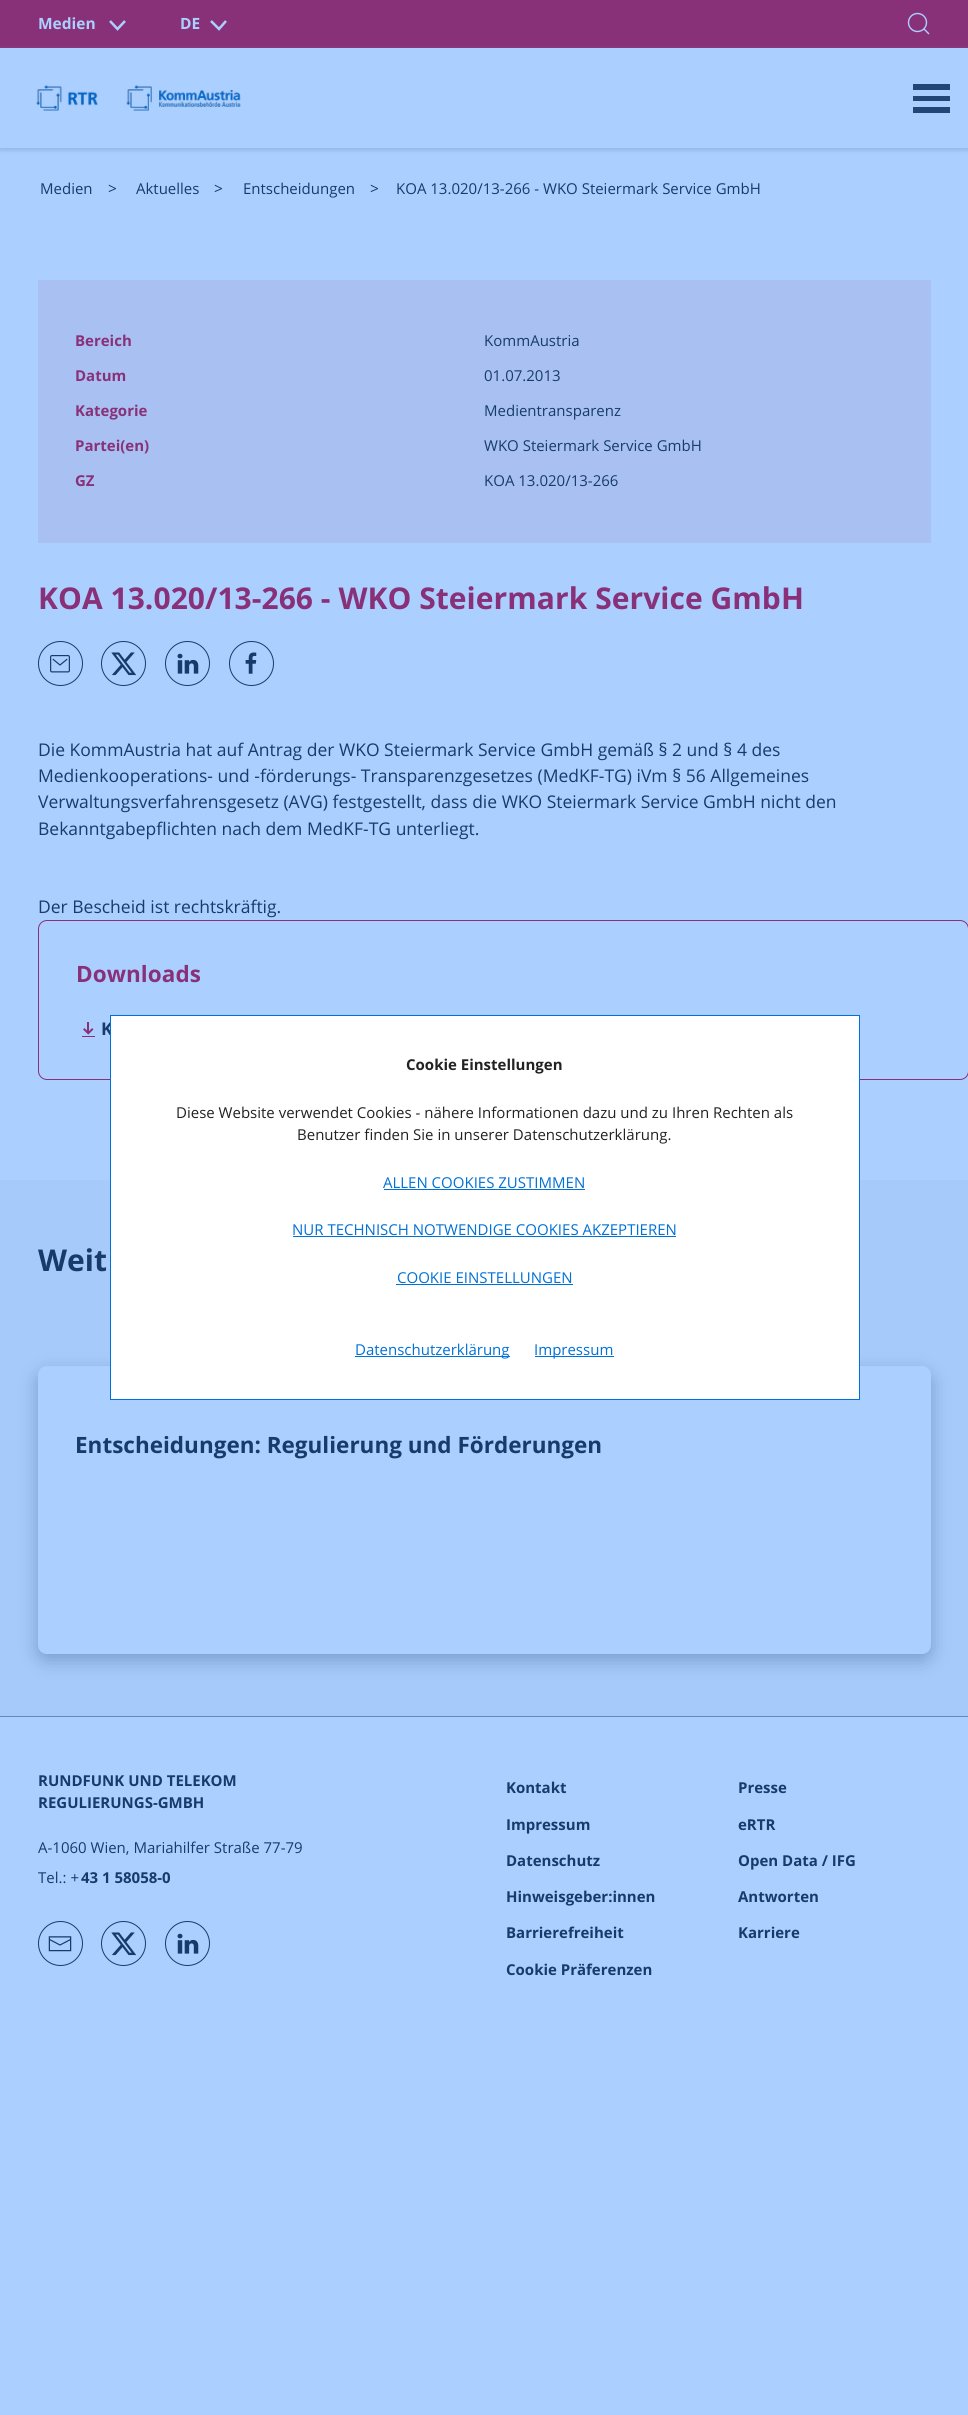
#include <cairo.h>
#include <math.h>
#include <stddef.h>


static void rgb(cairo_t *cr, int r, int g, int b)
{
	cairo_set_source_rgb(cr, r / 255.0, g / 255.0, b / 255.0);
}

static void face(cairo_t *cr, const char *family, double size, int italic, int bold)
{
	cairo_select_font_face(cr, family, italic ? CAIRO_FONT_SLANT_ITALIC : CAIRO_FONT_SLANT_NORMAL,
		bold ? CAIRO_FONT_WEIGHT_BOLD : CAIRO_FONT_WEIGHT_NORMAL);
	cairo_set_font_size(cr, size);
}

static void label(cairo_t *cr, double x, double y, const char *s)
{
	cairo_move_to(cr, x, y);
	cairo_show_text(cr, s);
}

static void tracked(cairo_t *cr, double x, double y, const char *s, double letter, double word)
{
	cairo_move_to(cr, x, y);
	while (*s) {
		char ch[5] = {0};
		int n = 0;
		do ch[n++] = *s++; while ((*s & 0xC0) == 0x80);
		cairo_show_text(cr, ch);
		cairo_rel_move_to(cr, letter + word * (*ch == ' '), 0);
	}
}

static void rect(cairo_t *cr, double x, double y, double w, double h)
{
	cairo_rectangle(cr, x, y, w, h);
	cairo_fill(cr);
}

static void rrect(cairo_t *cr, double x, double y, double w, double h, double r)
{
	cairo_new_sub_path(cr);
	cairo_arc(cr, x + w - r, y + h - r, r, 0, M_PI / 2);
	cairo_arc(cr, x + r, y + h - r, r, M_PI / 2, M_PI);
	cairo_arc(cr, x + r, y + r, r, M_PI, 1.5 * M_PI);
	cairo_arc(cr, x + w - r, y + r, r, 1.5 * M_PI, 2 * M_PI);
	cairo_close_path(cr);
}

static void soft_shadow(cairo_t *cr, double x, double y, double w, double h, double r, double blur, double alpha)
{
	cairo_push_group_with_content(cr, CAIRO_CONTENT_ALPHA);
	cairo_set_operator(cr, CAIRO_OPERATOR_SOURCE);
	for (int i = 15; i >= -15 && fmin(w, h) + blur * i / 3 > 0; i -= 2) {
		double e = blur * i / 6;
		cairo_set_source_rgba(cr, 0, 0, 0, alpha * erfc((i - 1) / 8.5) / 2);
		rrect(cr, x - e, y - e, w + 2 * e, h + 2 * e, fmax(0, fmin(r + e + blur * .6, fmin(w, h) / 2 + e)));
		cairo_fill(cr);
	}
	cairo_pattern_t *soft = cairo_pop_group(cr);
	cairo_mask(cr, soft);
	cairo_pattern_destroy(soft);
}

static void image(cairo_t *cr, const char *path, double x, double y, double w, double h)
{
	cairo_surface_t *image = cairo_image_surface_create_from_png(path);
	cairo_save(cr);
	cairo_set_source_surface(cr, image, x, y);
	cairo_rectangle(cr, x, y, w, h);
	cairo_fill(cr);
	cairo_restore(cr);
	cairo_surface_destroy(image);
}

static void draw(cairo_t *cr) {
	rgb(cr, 171, 208, 255);
	cairo_paint(cr);
	rgb(cr, 137, 49, 120);
	rect(cr, 0, 0, 968, 48);
	face(cr, "Open Sans", 15.5, 0, 1);
	rgb(cr, 171, 208, 255);
	label(cr, 38, 29, "Medien");
	cairo_new_path(cr);
	cairo_move_to(cr, 125, 21);
	cairo_line_to(cr, 117.5, 29);
	cairo_line_to(cr, 110, 21);
	cairo_set_line_width(cr, 2.5);
	cairo_stroke(cr);
	label(cr, 180, 29, "DE");
	cairo_new_path(cr);
	cairo_move_to(cr, 226, 21);
	cairo_line_to(cr, 219, 29);
	cairo_line_to(cr, 211, 21);
	cairo_stroke(cr);
	cairo_arc(cr, 917.5, 22.5, 9, 0, 2 * M_PI);
	cairo_set_line_width(cr, 1.4);
	cairo_stroke(cr);
	cairo_new_path(cr);
	cairo_move_to(cr, 924, 29);
	cairo_line_to(cr, 929, 34);
	cairo_close_path(cr);
	cairo_stroke(cr);
	rgb(cr, 115, 152, 199);
	soft_shadow(cr, 0, 50, 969, 100, 0, 2.5, 0.5);
	rgb(cr, 171, 208, 255);
	rect(cr, 0, 48, 968, 100);
	image(cr, "image0.png", 36, 85, 62, 26);
	image(cr, "image1.png", 126, 85, 115, 26);
	rgb(cr, 34, 71, 118);
	rect(cr, 913, 84, 37, 6);
	rect(cr, 913, 96, 37, 5);
	rect(cr, 913, 107, 37, 6);
	face(cr, "Open Sans", 15, 0, 0);
	rgb(cr, 23, 60, 107);
	label(cr, 40, 194, "Medien");
	face(cr, "Open Sans", 15.5, 0, 0);
	label(cr, 108, 194, ">");
	face(cr, "Open Sans", 15, 0, 0);
	label(cr, 136, 194, "Aktuelles");
	face(cr, "Open Sans", 15.5, 0, 0);
	label(cr, 214, 194, ">");
	face(cr, "Open Sans", 15, 0, 0);
	label(cr, 243, 194, "Entscheidungen");
	face(cr, "Open Sans", 15.5, 0, 0);
	label(cr, 370, 194, ">");
	face(cr, "Open Sans", 15, 0, 0);
	label(cr, 396, 194, "KOA 13.020/13-266 - WKO Steiermark Service GmbH");
	rgb(cr, 168, 193, 242);
	rect(cr, 38, 280, 893, 263);
	face(cr, "Open Sans", 15, 0, 1);
	rgb(cr, 137, 49, 120);
	label(cr, 75, 346, "Bereich");
	face(cr, "Open Sans", 15, 0, 0);
	rgb(cr, 23, 60, 107);
	label(cr, 484, 346, "KommAustria");
	face(cr, "Open Sans", 15, 0, 1);
	rgb(cr, 137, 49, 120);
	label(cr, 75, 381, "Datum");
	face(cr, "Open Sans", 15, 0, 0);
	rgb(cr, 23, 60, 107);
	label(cr, 484, 381, "01.07.2013");
	face(cr, "Open Sans", 15, 0, 1);
	rgb(cr, 137, 49, 120);
	label(cr, 75, 416, "Kategorie");
	face(cr, "Open Sans", 15, 0, 0);
	rgb(cr, 23, 60, 107);
	label(cr, 484, 416, "Medientransparenz");
	face(cr, "Open Sans", 15, 0, 1);
	rgb(cr, 137, 49, 120);
	label(cr, 75, 451, "Partei(en)");
	face(cr, "Open Sans", 15, 0, 0);
	rgb(cr, 23, 60, 107);
	label(cr, 484, 451, "WKO Steiermark Service GmbH");
	face(cr, "Open Sans", 15, 0, 1);
	rgb(cr, 137, 49, 120);
	label(cr, 75, 486, "GZ");
	face(cr, "Open Sans", 15, 0, 0);
	rgb(cr, 23, 60, 107);
	label(cr, 484, 486, "KOA 13.020/13-266");
	face(cr, "Open Sans", 30, 0, 1);
	rgb(cr, 137, 49, 120);
	tracked(cr, 38, 609, "KOA 13.020/13-266 - WKO Steiermark Service GmbH", 0.05, 0);
	cairo_new_path(cr);
	cairo_arc(cr, 60.5, 663.5, 22, 0, 2 * M_PI);
	rgb(cr, 23, 60, 107);
	cairo_set_line_width(cr, 1);
	cairo_stroke(cr);
	image(cr, "image2.png", 50, 655, 20, 18);
	cairo_arc(cr, 123.5, 663.5, 22, 0, 2 * M_PI);
	cairo_stroke(cr);
	image(cr, "image3.png", 111, 652, 25, 24);
	cairo_arc(cr, 187.5, 663.5, 22, 0, 2 * M_PI);
	cairo_stroke(cr);
	image(cr, "image4.png", 177, 653, 22, 21);
	cairo_arc(cr, 251.5, 663.5, 22, 0, 2 * M_PI);
	cairo_stroke(cr);
	image(cr, "image5.png", 245, 652, 12, 22);
	face(cr, "Open Sans", 17.5, 0, 0);
	label(cr, 38, 756, "Die KommAustria hat auf Antrag der WKO Steiermark Service GmbH gemäß § 2 und § 4 des");
	label(cr, 38, 782, "Medienkooperations- und -förderungs- Transparenzgesetzes (MedKF-TG) iVm § 56 Allgemeines");
	label(cr, 38, 808, "Verwaltungsverfahrensgesetz (AVG) festgestellt, dass die WKO Steiermark Service GmbH nicht den");
	label(cr, 38, 835, "Bekanntgabepflichten nach dem MedKF-TG unterliegt.");
	label(cr, 38, 913, "Der Bescheid ist rechtskräftig.");
	rrect(cr, 38.5, 920.5, 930, 159, 8.5);
	rgb(cr, 137, 49, 120);
	cairo_stroke(cr);
	face(cr, "Open Sans", 22.5, 0, 1);
	tracked(cr, 76, 982, "Downloads", 0.05, 0);
	image(cr, "image6.png", 82, 1022, 13, 15);
	face(cr, "Open Sans", 17.5, 0, 1);
	rgb(cr, 23, 60, 107);
	label(cr, 101, 1035, "K");
	rgb(cr, 166, 203, 250);
	rect(cr, 0, 1180, 968, 536);
	face(cr, "Open Sans", 30, 0, 1);
	rgb(cr, 23, 60, 107);
	tracked(cr, 38, 1271, "Weit", 0.05, 0);
	rgb(cr, 0, 37, 84);
	soft_shadow(cr, 38, 1373, 893, 287, 9, 9.5, 0.28);
	rgb(cr, 171, 208, 255);
	rrect(cr, 38, 1366, 893, 288, 9);
	cairo_fill(cr);
	face(cr, "Open Sans", 22.5, 0, 1);
	rgb(cr, 23, 60, 107);
	label(cr, 75, 1453, "Entscheidungen: Regulierung und Förderungen");
	rgb(cr, 101, 138, 185);
	rect(cr, 0, 1716, 968, 1);
	face(cr, "Open Sans", 15, 0, 1);
	rgb(cr, 23, 60, 107);
	label(cr, 38, 1786, "RUNDFUNK UND TELEKOM");
	label(cr, 38, 1808, "REGULIERUNGS-GMBH");
	face(cr, "Open Sans", 15, 0, 0);
	label(cr, 38, 1853, "A-1060 Wien, Mariahilfer Straße 77-79");
	label(cr, 38, 1883, "Tel.: +");
	face(cr, "Open Sans", 15, 0, 1);
	label(cr, 81, 1883, "43 1 58058-0");
	cairo_new_path(cr);
	cairo_arc(cr, 60.5, 1943.5, 22, 0, 2 * M_PI);
	cairo_stroke(cr);
	image(cr, "image7.png", 48, 1936, 24, 16);
	cairo_arc(cr, 123.5, 1943.5, 22, 0, 2 * M_PI);
	cairo_stroke(cr);
	image(cr, "image3.png", 111, 1932, 25, 24);
	cairo_arc(cr, 187.5, 1943.5, 22, 0, 2 * M_PI);
	cairo_stroke(cr);
	image(cr, "image4.png", 177, 1933, 22, 21);
	label(cr, 506, 1793, "Kontakt");
	label(cr, 506, 1830, "Impressum");
	label(cr, 506, 1866, "Datenschutz");
	label(cr, 506, 1902, "Hinweisgeber:innen");
	label(cr, 506, 1938, "Barrierefreiheit");
	label(cr, 506, 1975, "Cookie Präferenzen");
	label(cr, 738, 1793, "Presse");
	label(cr, 738, 1830, "eRTR");
	label(cr, 738, 1866, "Open Data / IFG");
	label(cr, 738, 1902, "Antworten");
	label(cr, 738, 1938, "Karriere");
	rgb(cr, 255, 255, 255);
	cairo_rectangle(cr, 110.5, 1015.5, 749, 384);
	cairo_fill_preserve(cr);
	rgb(cr, 0, 113, 215);
	cairo_stroke(cr);
	rgb(cr, 34, 34, 34);
	label(cr, 406, 1070, "Cookie Einstellungen");
	face(cr, "Open Sans", 15, 0, 0);
	label(cr, 176, 1118, "Diese Website verwendet Cookies - nähere Informationen dazu und zu Ihren Rechten als");
	label(cr, 297, 1140, "Benutzer finden Sie in unserer Datenschutzerklärung.");
	rgb(cr, 0, 113, 215);
	label(cr, 383, 1188, "ALLEN COOKIES ZUSTIMMEN");
	rect(cr, 384, 1189, 201, 1);
	label(cr, 292, 1235, "NUR TECHNISCH NOTWENDIGE COOKIES AKZEPTIEREN");
	rect(cr, 293, 1236, 383, 1);
	label(cr, 397, 1283, "COOKIE EINSTELLUNGEN");
	rect(cr, 396, 1284, 177, 1);
	rect(cr, 355, 1356, 155, 1);
	label(cr, 355, 1355, "Datenschutzerklärung");
	rect(cr, 535, 1356, 79, 1);
	label(cr, 534, 1355, "Impressum");
}

int main(void) {
	cairo_surface_t *surface = cairo_image_surface_create(CAIRO_FORMAT_RGB24, 968, 2415);
	cairo_t *cr = cairo_create(surface);
	cairo_font_options_t *options = cairo_font_options_create();
	cairo_font_options_set_hint_metrics(options, CAIRO_HINT_METRICS_OFF);
	cairo_font_options_set_hint_style(options, CAIRO_HINT_STYLE_NONE);
	cairo_set_font_options(cr, options);
	cairo_set_miter_limit(cr, 4);
	draw(cr);
	cairo_surface_write_to_png(surface, "render.png");
	cairo_font_options_destroy(options);
	cairo_destroy(cr);
	cairo_surface_destroy(surface);
	return 0;
}
